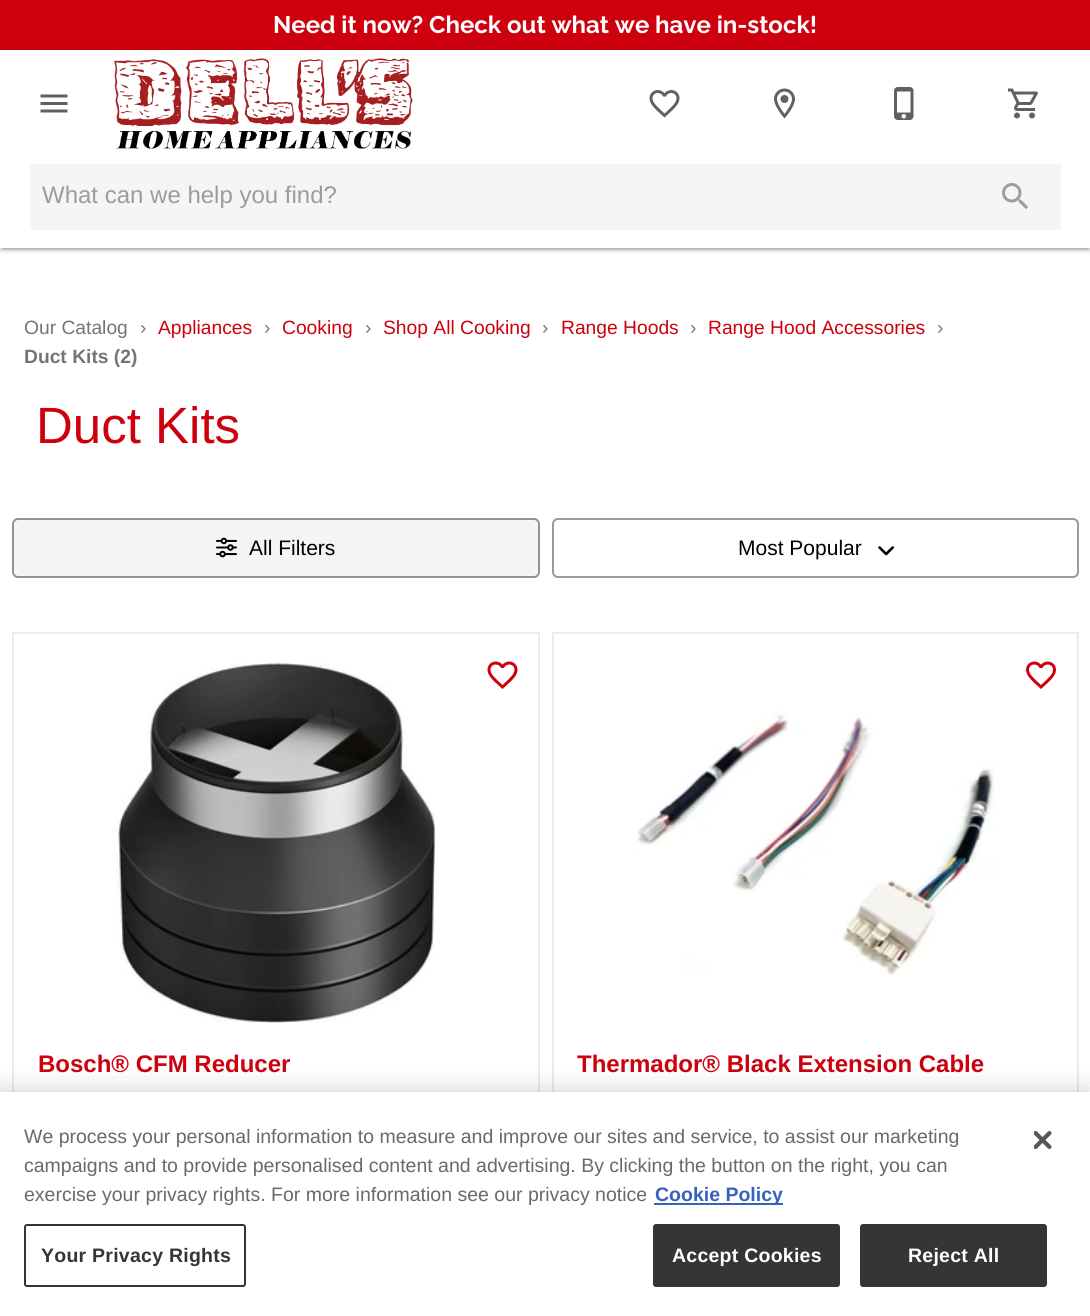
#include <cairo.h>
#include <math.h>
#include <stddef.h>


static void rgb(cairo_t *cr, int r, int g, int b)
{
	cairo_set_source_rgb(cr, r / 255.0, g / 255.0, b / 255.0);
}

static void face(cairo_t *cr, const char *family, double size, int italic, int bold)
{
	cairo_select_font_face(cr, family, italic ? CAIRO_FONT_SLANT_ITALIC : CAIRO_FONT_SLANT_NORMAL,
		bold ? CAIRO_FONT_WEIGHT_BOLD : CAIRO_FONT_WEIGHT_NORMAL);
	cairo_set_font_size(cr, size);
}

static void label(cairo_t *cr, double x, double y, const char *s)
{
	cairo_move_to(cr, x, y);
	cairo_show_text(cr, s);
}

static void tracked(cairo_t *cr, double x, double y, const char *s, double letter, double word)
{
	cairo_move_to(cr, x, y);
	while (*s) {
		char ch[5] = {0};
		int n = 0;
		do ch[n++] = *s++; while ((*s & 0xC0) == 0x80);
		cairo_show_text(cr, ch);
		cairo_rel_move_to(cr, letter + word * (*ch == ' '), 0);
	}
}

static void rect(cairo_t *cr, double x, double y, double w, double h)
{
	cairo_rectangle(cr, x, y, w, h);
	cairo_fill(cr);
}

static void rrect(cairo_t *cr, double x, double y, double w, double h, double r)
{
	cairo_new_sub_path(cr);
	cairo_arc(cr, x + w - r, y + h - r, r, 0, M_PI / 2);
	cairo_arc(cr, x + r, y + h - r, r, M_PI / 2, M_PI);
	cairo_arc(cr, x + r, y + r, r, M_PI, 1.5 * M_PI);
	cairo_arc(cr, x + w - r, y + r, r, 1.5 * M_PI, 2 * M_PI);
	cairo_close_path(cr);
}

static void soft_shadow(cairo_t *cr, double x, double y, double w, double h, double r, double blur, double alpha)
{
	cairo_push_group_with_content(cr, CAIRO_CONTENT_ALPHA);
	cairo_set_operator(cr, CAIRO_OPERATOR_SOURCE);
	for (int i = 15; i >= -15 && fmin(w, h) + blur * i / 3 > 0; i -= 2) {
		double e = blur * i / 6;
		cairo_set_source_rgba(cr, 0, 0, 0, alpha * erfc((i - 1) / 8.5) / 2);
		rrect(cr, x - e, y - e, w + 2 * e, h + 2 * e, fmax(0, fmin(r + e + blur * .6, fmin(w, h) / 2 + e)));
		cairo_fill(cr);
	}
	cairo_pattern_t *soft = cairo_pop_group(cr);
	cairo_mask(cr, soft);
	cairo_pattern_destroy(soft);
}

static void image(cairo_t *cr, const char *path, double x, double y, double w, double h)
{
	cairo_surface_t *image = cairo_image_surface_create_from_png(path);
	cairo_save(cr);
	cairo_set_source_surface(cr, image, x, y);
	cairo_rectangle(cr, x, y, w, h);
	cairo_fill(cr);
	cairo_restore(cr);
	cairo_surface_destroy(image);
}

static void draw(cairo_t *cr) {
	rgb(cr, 255, 255, 255);
	cairo_paint(cr);
	rgb(cr, 206, 0, 13);
	rect(cr, 0, 0, 1090, 50);
	face(cr, "Raleway", 24, 0, 1);
	rgb(cr, 255, 255, 255);
	label(cr, 273, 33, "Need it now? Check out what we have in-stock!");
	rgb(cr, 0, 0, 0);
	soft_shadow(cr, 0, 51, 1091, 198, 0, 4, 0.12);
	soft_shadow(cr, 0, 53, 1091, 198, 0, 1.5, 0.14);
	soft_shadow(cr, 3, 57, 1085, 192, 0, 1, 0.2);
	rgb(cr, 255, 255, 255);
	rect(cr, 0, 50, 1090, 198);
	image(cr, "image0.png", 40, 94, 28, 19);
	image(cr, "image1.png", 114, 58, 299, 91);
	image(cr, "image2.png", 649, 90, 31, 28);
	image(cr, "image3.png", 774, 88, 21, 31);
	image(cr, "image4.png", 894, 87, 20, 33);
	image(cr, "image5.png", 1008, 88, 30, 31);
	rgb(cr, 245, 245, 245);
	rect(cr, 30, 164, 1031, 66);
	face(cr, "Liberation Sans", 24, 0, 0);
	rgb(cr, 156, 156, 156);
	label(cr, 42, 203, "What can we help you find?");
	image(cr, "image6.png", 1002, 183, 26, 26);
	face(cr, "Liberation Sans", 19.25, 0, 0);
	rgb(cr, 117, 117, 117);
	label(cr, 24, 334, "Our Catalog");
	label(cr, 140, 334, "›");
	rgb(cr, 206, 0, 13);
	label(cr, 158, 334, "Appliances");
	rgb(cr, 117, 117, 117);
	label(cr, 264, 334, "›");
	rgb(cr, 206, 0, 13);
	label(cr, 282, 334, "Cooking");
	rgb(cr, 117, 117, 117);
	label(cr, 365, 334, "›");
	rgb(cr, 206, 0, 13);
	label(cr, 383, 334, "Shop All Cooking");
	rgb(cr, 117, 117, 117);
	label(cr, 542, 334, "›");
	rgb(cr, 206, 0, 13);
	label(cr, 561, 334, "Range Hoods");
	rgb(cr, 117, 117, 117);
	label(cr, 690, 334, "›");
	rgb(cr, 206, 0, 13);
	label(cr, 708, 334, "Range Hood Accessories");
	rgb(cr, 117, 117, 117);
	label(cr, 937, 334, "›");
	face(cr, "Liberation Sans", 19.25, 0, 1);
	label(cr, 24, 363, "Duct Kits (2)");
	face(cr, "Liberation Sans", 51, 0, 0);
	rgb(cr, 206, 0, 13);
	label(cr, 36, 443, "Duct Kits");
	rgb(cr, 245, 245, 245);
	rrect(cr, 13, 519, 526, 58, 5);
	cairo_fill_preserve(cr);
	rgb(cr, 147, 147, 147);
	cairo_stroke(cr);
	image(cr, "image7.png", 216, 537, 21, 21);
	face(cr, "Liberation Sans", 21, 0, 0);
	rgb(cr, 0, 0, 0);
	label(cr, 249, 555, "All Filters");
	rrect(cr, 553, 519, 525, 58, 5);
	rgb(cr, 153, 153, 153);
	cairo_stroke(cr);
	rgb(cr, 0, 0, 0);
	label(cr, 738, 555, "Most Popular");
	image(cr, "image8.png", 878, 546, 16, 10);
	cairo_rectangle(cr, 13, 633, 526, 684);
	rgb(cr, 236, 236, 236);
	cairo_stroke(cr);
	image(cr, "image9.png", 115, 663, 320, 360);
	image(cr, "image10.png", 487, 661, 31, 28);
	face(cr, "Liberation Sans", 24, 0, 1);
	rgb(cr, 206, 0, 13);
	label(cr, 38, 1072, "Bosch® CFM Reducer");
	cairo_rectangle(cr, 553, 633, 525, 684);
	rgb(cr, 236, 236, 236);
	cairo_stroke(cr);
	image(cr, "image11.png", 1026, 661, 30, 28);
	image(cr, "image12.png", 636, 711, 359, 265);
	rgb(cr, 206, 0, 13);
	label(cr, 577, 1072, "Thermador® Black Extension Cable");
	rgb(cr, 0, 0, 0);
	soft_shadow(cr, 0, 1092, 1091, 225, 0, 13.5, 0.2);
	rgb(cr, 255, 255, 255);
	rect(cr, 0, 1092, 1090, 224);
	face(cr, "Liberation Sans", 19.5, 0, 0);
	rgb(cr, 105, 105, 105);
	label(cr, 24, 1143, "We process your personal information to measure and improve our sites and service, to assist our marketing");
	label(cr, 24, 1172, "campaigns and to provide personalised content and advertising. By clicking the button on the right, you can");
	label(cr, 24, 1201, "exercise your privacy rights. For more information see our privacy notice");
	rgb(cr, 56, 96, 190);
	rect(cr, 654, 1203, 129, 2);
	face(cr, "Liberation Sans", 19.5, 0, 1);
	label(cr, 655, 1201, "Cookie Policy");
	rrect(cr, 25, 1225, 220, 61, 2);
	rgb(cr, 53, 53, 53);
	cairo_stroke(cr);
	tracked(cr, 41, 1262, "Your Privacy Rights", 0.25, 0);
	rrect(cr, 654, 1225, 185, 61, 2);
	cairo_fill_preserve(cr);
	cairo_stroke(cr);
	rgb(cr, 255, 255, 255);
	tracked(cr, 672, 1262, "Accept Cookies", 0.25, 0);
	rgb(cr, 53, 53, 53);
	rrect(cr, 861, 1225, 185, 61, 2);
	cairo_fill_preserve(cr);
	cairo_stroke(cr);
	rgb(cr, 255, 255, 255);
	tracked(cr, 908, 1262, "Reject All", 0.25, 0);
	image(cr, "image13.png", 1034, 1131, 18, 18);
}

int main(void) {
	cairo_surface_t *surface = cairo_image_surface_create(CAIRO_FORMAT_RGB24, 1090, 1316);
	cairo_t *cr = cairo_create(surface);
	cairo_font_options_t *options = cairo_font_options_create();
	cairo_font_options_set_hint_metrics(options, CAIRO_HINT_METRICS_OFF);
	cairo_font_options_set_hint_style(options, CAIRO_HINT_STYLE_NONE);
	cairo_set_font_options(cr, options);
	cairo_set_miter_limit(cr, 4);
	draw(cr);
	cairo_surface_write_to_png(surface, "render.png");
	cairo_font_options_destroy(options);
	cairo_destroy(cr);
	cairo_surface_destroy(surface);
	return 0;
}
